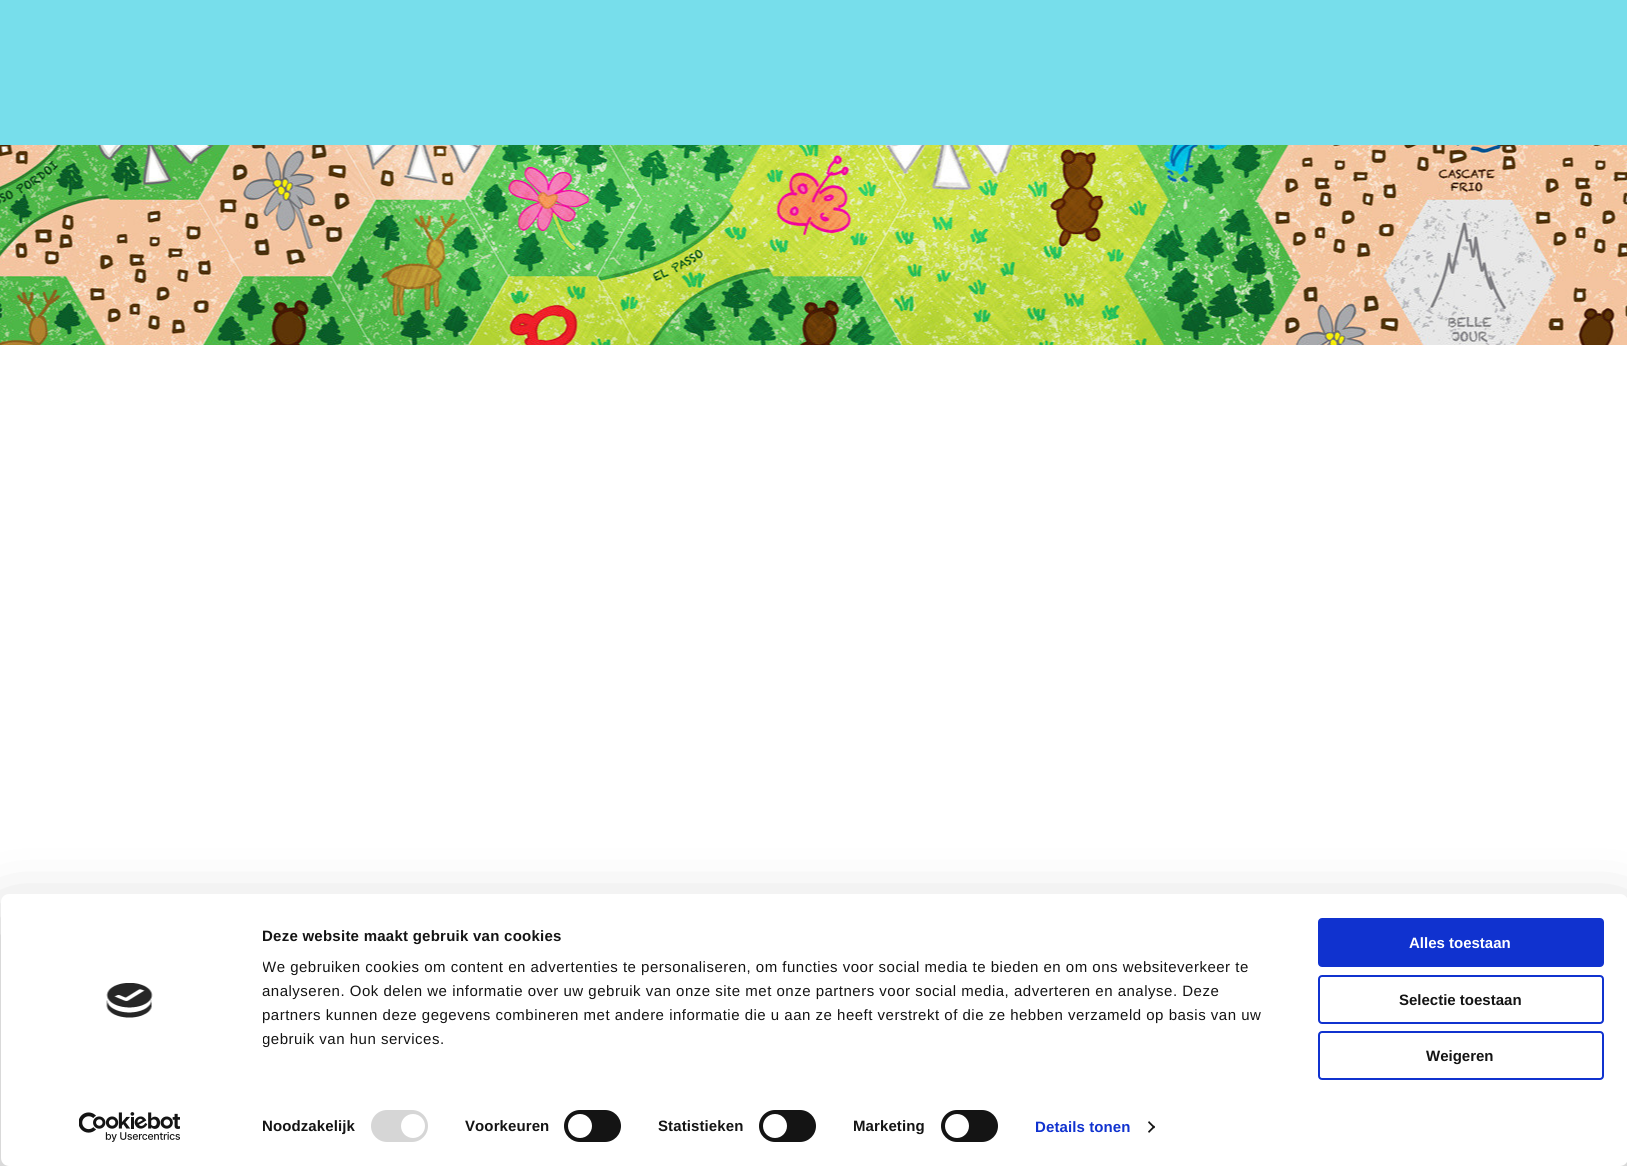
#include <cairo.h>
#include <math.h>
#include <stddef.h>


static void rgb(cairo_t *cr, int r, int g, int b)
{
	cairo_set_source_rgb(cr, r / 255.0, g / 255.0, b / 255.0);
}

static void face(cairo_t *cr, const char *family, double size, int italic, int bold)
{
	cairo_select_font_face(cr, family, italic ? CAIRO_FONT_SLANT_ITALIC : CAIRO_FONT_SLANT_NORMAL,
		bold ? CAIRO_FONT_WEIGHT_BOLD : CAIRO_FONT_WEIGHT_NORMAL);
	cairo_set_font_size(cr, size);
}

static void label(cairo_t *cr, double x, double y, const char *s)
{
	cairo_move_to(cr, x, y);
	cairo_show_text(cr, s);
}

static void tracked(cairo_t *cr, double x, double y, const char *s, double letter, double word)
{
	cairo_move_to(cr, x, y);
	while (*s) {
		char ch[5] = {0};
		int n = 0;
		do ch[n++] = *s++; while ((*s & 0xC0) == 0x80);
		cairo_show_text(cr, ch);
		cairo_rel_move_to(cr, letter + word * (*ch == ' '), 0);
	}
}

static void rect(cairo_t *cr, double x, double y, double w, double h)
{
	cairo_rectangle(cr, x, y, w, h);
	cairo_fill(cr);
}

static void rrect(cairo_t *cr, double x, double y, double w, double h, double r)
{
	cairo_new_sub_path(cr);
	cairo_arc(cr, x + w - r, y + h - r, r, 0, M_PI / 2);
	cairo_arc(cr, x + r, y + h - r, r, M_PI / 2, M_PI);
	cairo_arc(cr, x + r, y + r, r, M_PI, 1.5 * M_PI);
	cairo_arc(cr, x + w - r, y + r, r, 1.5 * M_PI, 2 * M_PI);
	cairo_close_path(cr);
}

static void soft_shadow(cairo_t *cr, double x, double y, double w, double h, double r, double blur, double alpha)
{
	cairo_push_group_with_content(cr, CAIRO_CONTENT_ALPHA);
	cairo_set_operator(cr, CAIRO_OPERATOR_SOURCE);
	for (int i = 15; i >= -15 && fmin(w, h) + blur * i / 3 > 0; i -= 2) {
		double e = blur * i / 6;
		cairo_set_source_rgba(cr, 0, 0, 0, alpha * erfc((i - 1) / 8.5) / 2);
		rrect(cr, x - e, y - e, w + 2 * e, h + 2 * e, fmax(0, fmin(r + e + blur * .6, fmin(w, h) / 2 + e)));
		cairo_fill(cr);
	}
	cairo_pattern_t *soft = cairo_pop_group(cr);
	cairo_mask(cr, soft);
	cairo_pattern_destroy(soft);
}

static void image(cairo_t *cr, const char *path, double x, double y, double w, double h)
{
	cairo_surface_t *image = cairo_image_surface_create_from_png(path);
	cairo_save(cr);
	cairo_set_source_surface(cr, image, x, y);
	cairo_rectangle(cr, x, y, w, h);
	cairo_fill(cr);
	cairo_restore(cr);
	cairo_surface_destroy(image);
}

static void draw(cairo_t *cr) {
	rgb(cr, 255, 255, 255);
	cairo_paint(cr);
	rgb(cr, 119, 222, 235);
	rect(cr, 0, 0, 1627, 145);
	image(cr, "image0.png", 0, 145, 1627, 200);
	rgb(cr, 0, 0, 0);
	soft_shadow(cr, 1, 924, 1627, 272, 8, 35, 0.3);
	rgb(cr, 255, 255, 255);
	rrect(cr, 1, 894, 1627, 272, 8);
	cairo_fill(cr);
	image(cr, "image1.png", 106, 983, 47, 35);
	image(cr, "image2.png", 79, 1112, 101, 30);
	face(cr, "Liberation Sans", 15, 0, 1);
	rgb(cr, 20, 20, 20);
	tracked(cr, 262, 941, "Deze website maakt gebruik van cookies", 0.25, 0);
	cairo_save(cr);
	cairo_rectangle(cr, 263, 924, 1026, 150);
	cairo_clip(cr);
	face(cr, "Liberation Sans", 15, 0, 0);
	tracked(cr, 262, 972, "We gebruiken cookies om content en advertenties te personaliseren, om functies voor social media te bieden en om ons websiteverkeer te", 0.5, 0);
	cairo_restore(cr);
	face(cr, "Liberation Sans", 15, 0, 0);
	tracked(cr, 262, 996, "analyseren. Ook delen we informatie over uw gebruik van onze site met onze partners voor social media, adverteren en analyse. Deze", 0.5, 0);
	tracked(cr, 262, 1020, "partners kunnen deze gegevens combineren met andere informatie die u aan ze heeft verstrekt of die ze hebben verzameld op basis van uw", 0.5, 0);
	cairo_save(cr);
	cairo_rectangle(cr, 263, 924, 1026, 150);
	cairo_clip(cr);
	tracked(cr, 262, 1044, "gebruik van hun services.", 0.5, 0);
	cairo_restore(cr);
	face(cr, "Liberation Sans", 15, 0, 1);
	tracked(cr, 262, 1131, "Noodzakelijk", 0.1, 0);
	rgb(cr, 214, 214, 214);
	rrect(cr, 371, 1110, 57, 32, 16);
	cairo_fill(cr);
	rgb(cr, 255, 255, 255);
	cairo_arc(cr, 413, 1126, 12, 0, 2 * M_PI);
	cairo_fill(cr);
	rgb(cr, 20, 20, 20);
	tracked(cr, 465, 1131, "Voorkeuren", 0.1, 0);
	rrect(cr, 564, 1110, 57, 32, 16);
	cairo_fill(cr);
	rgb(cr, 255, 255, 255);
	cairo_arc(cr, 580, 1126, 12, 0, 2 * M_PI);
	cairo_fill(cr);
	rgb(cr, 20, 20, 20);
	tracked(cr, 658, 1131, "Statistieken", 0.1, 0);
	rrect(cr, 759, 1110, 57, 32, 16);
	cairo_fill(cr);
	rgb(cr, 255, 255, 255);
	cairo_arc(cr, 775, 1126, 12, 0, 2 * M_PI);
	cairo_fill(cr);
	rgb(cr, 20, 20, 20);
	tracked(cr, 853, 1131, "Marketing", 0.1, 0);
	rrect(cr, 941, 1110, 57, 32, 16);
	cairo_fill(cr);
	rgb(cr, 255, 255, 255);
	cairo_arc(cr, 957, 1126, 12, 0, 2 * M_PI);
	cairo_fill(cr);
	rgb(cr, 16, 50, 207);
	tracked(cr, 1035, 1132, "Details tonen", 0.1, 0);
	rgb(cr, 20, 20, 20);
	cairo_new_path(cr);
	cairo_move_to(cr, 1149, 1121);
	cairo_line_to(cr, 1155, 1127);
	cairo_line_to(cr, 1154, 1128.5);
	cairo_line_to(cr, 1148, 1122.5);
	cairo_close_path(cr);
	cairo_fill(cr);
	cairo_new_path(cr);
	cairo_move_to(cr, 1154, 1125.5);
	cairo_line_to(cr, 1155, 1127);
	cairo_line_to(cr, 1149, 1133);
	cairo_line_to(cr, 1148, 1131.5);
	cairo_close_path(cr);
	cairo_fill(cr);
	rgb(cr, 16, 50, 207);
	rrect(cr, 1319, 919, 284, 47, 3);
	cairo_fill_preserve(cr);
	cairo_stroke(cr);
	rgb(cr, 255, 255, 255);
	label(cr, 1409, 948, "Alles toestaan");
	rrect(cr, 1319, 976, 284, 47, 3);
	rgb(cr, 16, 50, 207);
	cairo_stroke(cr);
	rgb(cr, 20, 20, 20);
	label(cr, 1399, 1005, "Selectie toestaan");
	rrect(cr, 1319, 1032, 284, 47, 3);
	rgb(cr, 16, 50, 207);
	cairo_stroke(cr);
	rgb(cr, 20, 20, 20);
	label(cr, 1426, 1061, "Weigeren");
}

int main(void) {
	cairo_surface_t *surface = cairo_image_surface_create(CAIRO_FORMAT_RGB24, 1627, 1166);
	cairo_t *cr = cairo_create(surface);
	cairo_font_options_t *options = cairo_font_options_create();
	cairo_font_options_set_hint_metrics(options, CAIRO_HINT_METRICS_OFF);
	cairo_font_options_set_hint_style(options, CAIRO_HINT_STYLE_NONE);
	cairo_set_font_options(cr, options);
	cairo_set_miter_limit(cr, 4);
	draw(cr);
	cairo_surface_write_to_png(surface, "render.png");
	cairo_font_options_destroy(options);
	cairo_destroy(cr);
	cairo_surface_destroy(surface);
	return 0;
}
